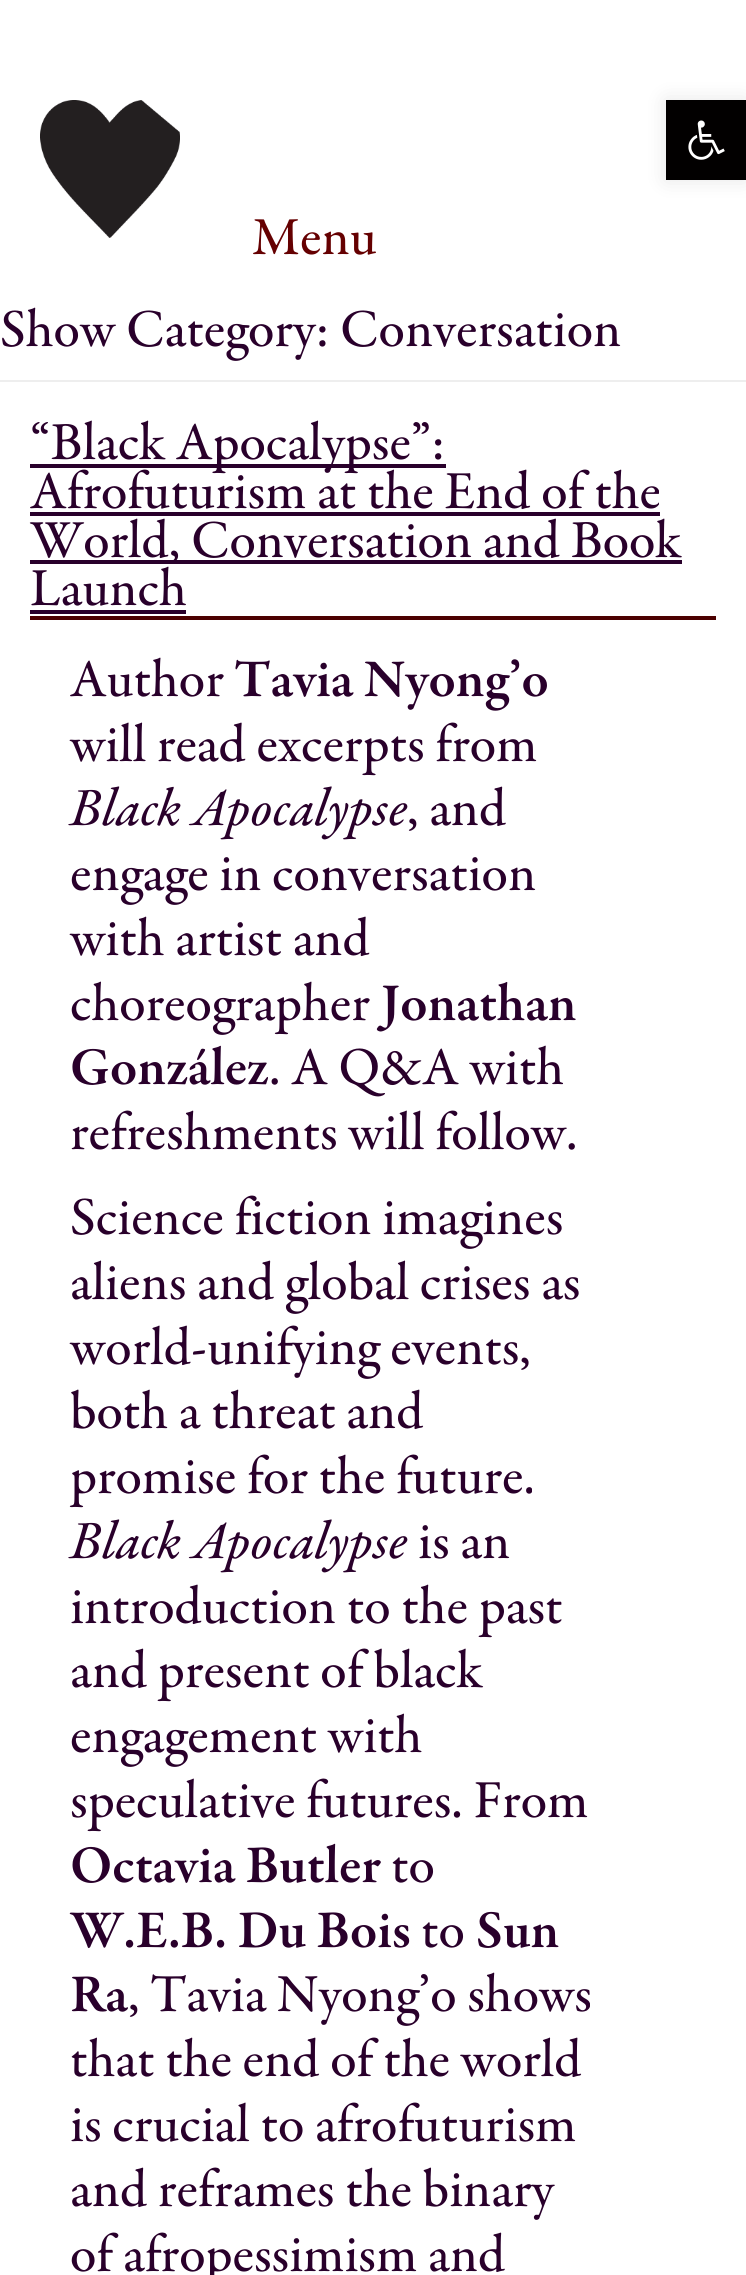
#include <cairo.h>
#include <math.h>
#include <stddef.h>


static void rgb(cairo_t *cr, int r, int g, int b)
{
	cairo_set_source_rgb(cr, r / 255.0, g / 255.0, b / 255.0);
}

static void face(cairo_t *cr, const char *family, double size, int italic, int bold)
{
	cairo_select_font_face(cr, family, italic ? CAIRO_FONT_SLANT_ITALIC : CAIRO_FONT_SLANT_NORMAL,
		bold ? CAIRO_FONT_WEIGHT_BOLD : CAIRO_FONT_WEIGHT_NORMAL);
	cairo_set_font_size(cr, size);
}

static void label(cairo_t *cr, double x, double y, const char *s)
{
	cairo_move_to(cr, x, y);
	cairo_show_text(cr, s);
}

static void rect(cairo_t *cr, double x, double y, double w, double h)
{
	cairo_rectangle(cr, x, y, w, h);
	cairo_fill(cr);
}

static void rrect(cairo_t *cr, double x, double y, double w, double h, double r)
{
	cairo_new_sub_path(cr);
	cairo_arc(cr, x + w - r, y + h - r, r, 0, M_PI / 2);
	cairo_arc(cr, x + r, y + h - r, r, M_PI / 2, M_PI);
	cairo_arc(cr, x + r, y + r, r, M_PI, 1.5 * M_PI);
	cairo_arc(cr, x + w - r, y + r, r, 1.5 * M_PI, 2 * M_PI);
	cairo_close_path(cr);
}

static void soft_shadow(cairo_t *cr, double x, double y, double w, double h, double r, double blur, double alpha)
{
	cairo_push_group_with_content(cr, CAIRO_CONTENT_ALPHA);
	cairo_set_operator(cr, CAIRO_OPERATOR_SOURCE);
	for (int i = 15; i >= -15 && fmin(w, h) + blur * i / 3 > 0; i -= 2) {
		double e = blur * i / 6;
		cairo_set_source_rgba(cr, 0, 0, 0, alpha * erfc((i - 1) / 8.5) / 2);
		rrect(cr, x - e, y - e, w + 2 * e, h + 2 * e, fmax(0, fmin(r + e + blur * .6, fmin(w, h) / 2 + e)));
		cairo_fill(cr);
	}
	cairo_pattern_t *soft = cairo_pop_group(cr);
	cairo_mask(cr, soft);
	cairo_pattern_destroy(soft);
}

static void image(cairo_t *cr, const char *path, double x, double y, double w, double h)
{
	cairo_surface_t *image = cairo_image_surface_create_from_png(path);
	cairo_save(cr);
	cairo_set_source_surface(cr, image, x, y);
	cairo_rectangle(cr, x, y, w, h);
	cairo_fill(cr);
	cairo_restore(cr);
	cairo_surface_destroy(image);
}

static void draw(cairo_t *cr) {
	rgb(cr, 255, 255, 255);
	cairo_paint(cr);
	rgb(cr, 0, 0, 0);
	soft_shadow(cr, 666, 100, 80, 80, 0, 10, 0.1);
	rgb(cr, 2, 0, 0);
	rect(cr, 666, 100, 80, 80);
	image(cr, "image0.png", 688, 120, 37, 40);
	image(cr, "image1.png", 40, 100, 140, 138);
	face(cr, "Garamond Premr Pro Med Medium", 54, 0, 0);
	rgb(cr, 101, 0, 1);
	label(cr, 252, 254, "Menu");
	rgb(cr, 238, 238, 238);
	rect(cr, 0, 380, 746, 2);
	rgb(cr, 41, 0, 43);
	label(cr, 0, 346, "Show Category: Conversation");
	rgb(cr, 76, 0, 0);
	rect(cr, 30, 616, 686, 4);
	rgb(cr, 41, 0, 43);
	rect(cr, 30, 464, 416, 4);
	label(cr, 30, 459, "“Black Apocalypse”:");
	label(cr, 30, 508, "Afrofuturism at the End of the");
	rect(cr, 30, 512, 630, 4);
	rect(cr, 30, 560, 652, 4);
	label(cr, 30, 557, "World, Conversation and Book");
	label(cr, 30, 605, "Launch");
	rect(cr, 30, 610, 156, 4);
	label(cr, 70, 696, "Author");
	face(cr, "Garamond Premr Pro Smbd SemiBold", 54, 0, 0);
	label(cr, 234, 696, "Tavia Nyong’o");
	face(cr, "Garamond Premr Pro Med Medium", 54, 0, 0);
	label(cr, 70, 761, "will read excerpts from");
	face(cr, "Garamond Premr Pro Med Medium", 54, 1, 0);
	label(cr, 70, 825, "Black Apocalypse");
	face(cr, "Garamond Premr Pro Med Medium", 54, 0, 0);
	label(cr, 407, 825, ", and");
	label(cr, 70, 890, "engage in conversation");
	label(cr, 70, 955, "with artist and");
	label(cr, 70, 1020, "choreographer");
	face(cr, "Garamond Premr Pro Smbd SemiBold", 54, 0, 0);
	label(cr, 381, 1020, "Jonathan");
	label(cr, 70, 1084, "González");
	face(cr, "Garamond Premr Pro Med Medium", 54, 0, 0);
	label(cr, 269, 1084, ". A Q&A with");
	label(cr, 70, 1149, "refreshments will follow.");
	label(cr, 70, 1234, "Science fiction imagines");
	label(cr, 70, 1299, "aliens and global crises as");
	label(cr, 70, 1364, "world-unifying events,");
	label(cr, 70, 1428, "both a threat and");
	label(cr, 70, 1493, "promise for the future.");
	face(cr, "Garamond Premr Pro Med Medium", 54, 1, 0);
	label(cr, 70, 1558, "Black Apocalypse");
	face(cr, "Garamond Premr Pro Med Medium", 54, 0, 0);
	label(cr, 418, 1558, "is an");
	label(cr, 70, 1623, "introduction to the past");
	label(cr, 70, 1687, "and present of black");
	label(cr, 70, 1752, "engagement with");
	label(cr, 70, 1817, "speculative futures. From");
	face(cr, "Garamond Premr Pro Smbd SemiBold", 54, 0, 0);
	label(cr, 70, 1882, "Octavia Butler");
	face(cr, "Garamond Premr Pro Med Medium", 54, 0, 0);
	label(cr, 391, 1882, "to");
	face(cr, "Garamond Premr Pro Smbd SemiBold", 54, 0, 0);
	label(cr, 70, 1947, "W.E.B. Du Bois");
	face(cr, "Garamond Premr Pro Med Medium", 54, 0, 0);
	label(cr, 421, 1947, "to");
	face(cr, "Garamond Premr Pro Smbd SemiBold", 54, 0, 0);
	label(cr, 476, 1947, "Sun");
	label(cr, 70, 2011, "Ra");
	face(cr, "Garamond Premr Pro Med Medium", 54, 0, 0);
	label(cr, 128, 2011, ", Tavia Nyong’o shows");
	label(cr, 70, 2076, "that the end of the world");
	label(cr, 70, 2141, "is crucial to afrofuturism");
	label(cr, 70, 2206, "and reframes the binary");
	label(cr, 70, 2271, "of afropessimism and");
}

int main(void) {
	cairo_surface_t *surface = cairo_image_surface_create(CAIRO_FORMAT_RGB24, 746, 2275);
	cairo_t *cr = cairo_create(surface);
	cairo_font_options_t *options = cairo_font_options_create();
	cairo_font_options_set_hint_metrics(options, CAIRO_HINT_METRICS_OFF);
	cairo_font_options_set_hint_style(options, CAIRO_HINT_STYLE_NONE);
	cairo_set_font_options(cr, options);
	cairo_set_miter_limit(cr, 4);
	draw(cr);
	cairo_surface_write_to_png(surface, "render.png");
	cairo_font_options_destroy(options);
	cairo_destroy(cr);
	cairo_surface_destroy(surface);
	return 0;
}
